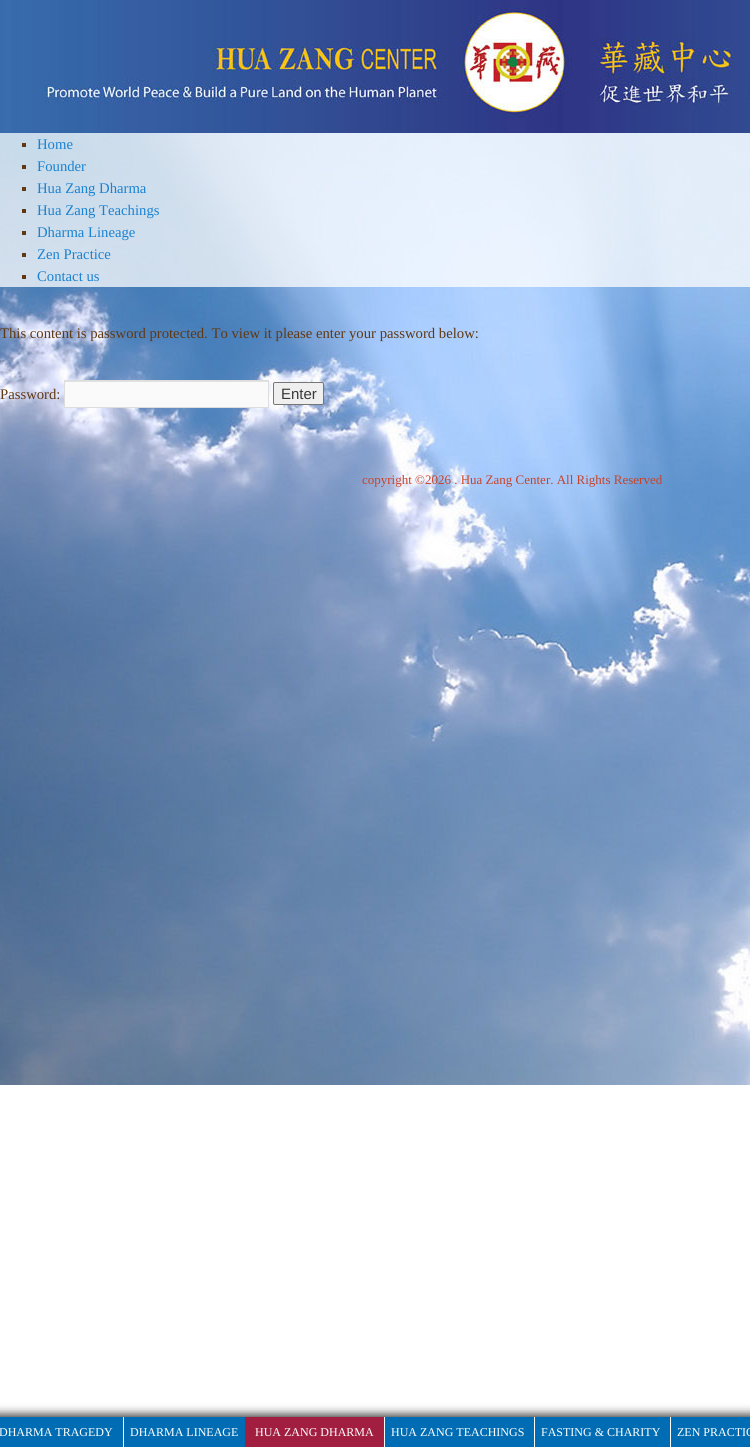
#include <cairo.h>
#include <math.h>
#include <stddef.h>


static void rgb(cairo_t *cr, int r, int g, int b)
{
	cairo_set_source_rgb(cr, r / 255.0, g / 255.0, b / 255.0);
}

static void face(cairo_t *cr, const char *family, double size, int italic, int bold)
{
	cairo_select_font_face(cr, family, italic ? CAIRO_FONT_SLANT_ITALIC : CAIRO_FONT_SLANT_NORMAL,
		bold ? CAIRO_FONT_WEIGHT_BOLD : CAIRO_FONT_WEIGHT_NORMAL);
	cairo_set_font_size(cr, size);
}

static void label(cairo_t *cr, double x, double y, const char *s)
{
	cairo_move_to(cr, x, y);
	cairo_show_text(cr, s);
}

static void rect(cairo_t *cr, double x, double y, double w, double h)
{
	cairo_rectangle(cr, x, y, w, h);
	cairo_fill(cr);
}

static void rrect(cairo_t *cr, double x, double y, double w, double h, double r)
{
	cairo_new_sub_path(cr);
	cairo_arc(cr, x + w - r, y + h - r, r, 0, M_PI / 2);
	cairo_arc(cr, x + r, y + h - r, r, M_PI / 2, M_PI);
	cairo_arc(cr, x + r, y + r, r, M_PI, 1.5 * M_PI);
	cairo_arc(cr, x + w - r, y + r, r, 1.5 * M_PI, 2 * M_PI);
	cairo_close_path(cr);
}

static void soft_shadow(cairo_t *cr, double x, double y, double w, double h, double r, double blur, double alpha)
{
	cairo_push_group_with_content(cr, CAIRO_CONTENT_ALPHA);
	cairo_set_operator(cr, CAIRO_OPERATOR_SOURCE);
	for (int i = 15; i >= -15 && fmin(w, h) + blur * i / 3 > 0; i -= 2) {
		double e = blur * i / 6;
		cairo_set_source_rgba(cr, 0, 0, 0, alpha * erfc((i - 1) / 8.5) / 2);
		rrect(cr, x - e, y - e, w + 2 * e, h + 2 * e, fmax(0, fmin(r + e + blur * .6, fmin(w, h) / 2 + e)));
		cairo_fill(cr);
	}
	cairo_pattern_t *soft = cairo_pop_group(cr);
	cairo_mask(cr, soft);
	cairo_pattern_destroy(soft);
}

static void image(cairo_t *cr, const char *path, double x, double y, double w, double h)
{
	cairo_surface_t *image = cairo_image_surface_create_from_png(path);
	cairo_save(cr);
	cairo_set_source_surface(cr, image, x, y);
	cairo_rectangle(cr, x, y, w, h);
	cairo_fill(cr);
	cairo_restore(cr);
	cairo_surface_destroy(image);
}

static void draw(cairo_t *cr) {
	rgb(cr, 255, 255, 255);
	cairo_paint(cr);
	image(cr, "image0.png", 0, 133, 750, 952);
	image(cr, "image1.png", 0, 0, 750, 133);
	cairo_set_source_rgba(cr, 1, 1, 1, 0.75);
	rect(cr, 0, 133, 750, 154);
	rgb(cr, 96, 56, 19);
	rect(cr, 22, 143, 4, 4);
	face(cr, "Liberation Serif", 14.7, 0, 0);
	rgb(cr, 25, 130, 209);
	label(cr, 37, 149, "Home");
	rgb(cr, 96, 56, 19);
	rect(cr, 22, 165, 4, 4);
	rgb(cr, 25, 130, 209);
	label(cr, 37, 171, "Founder");
	rgb(cr, 96, 56, 19);
	rect(cr, 22, 187, 4, 4);
	rgb(cr, 25, 130, 209);
	label(cr, 37, 193, "Hua Zang Dharma");
	rgb(cr, 96, 56, 19);
	rect(cr, 22, 209, 4, 4);
	rgb(cr, 25, 130, 209);
	label(cr, 37, 215, "Hua Zang Teachings");
	rgb(cr, 96, 56, 19);
	rect(cr, 22, 231, 4, 4);
	rgb(cr, 25, 130, 209);
	label(cr, 37, 237, "Dharma Lineage");
	rgb(cr, 96, 56, 19);
	rect(cr, 22, 253, 4, 4);
	rgb(cr, 25, 130, 209);
	label(cr, 37, 259, "Zen Practice");
	rgb(cr, 96, 56, 19);
	rect(cr, 22, 275, 4, 4);
	rgb(cr, 25, 130, 209);
	label(cr, 37, 281, "Contact us");
	rgb(cr, 96, 56, 19);
	label(cr, 0, 338, "This content is password protected. To view it please enter your password below:");
	label(cr, 0, 399, "Password:");
	rgb(cr, 250, 250, 250);
	rect(cr, 65, 382, 203, 25);
	rgb(cr, 225, 225, 225);
	rect(cr, 65, 381, 203, 1);
	cairo_rectangle(cr, 64.5, 380.5, 204, 27);
	rgb(cr, 221, 221, 221);
	cairo_set_line_width(cr, 1);
	cairo_stroke(cr);
	rgb(cr, 239, 239, 239);
	rrect(cr, 273.5, 382.5, 50, 22, 1.5);
	cairo_fill_preserve(cr);
	rgb(cr, 118, 118, 118);
	cairo_stroke(cr);
	face(cr, "Liberation Sans", 15, 0, 0);
	rgb(cr, 55, 55, 55);
	label(cr, 281, 399, "Enter");
	face(cr, "Liberation Serif", 13, 0, 0);
	rgb(cr, 199, 66, 40);
	label(cr, 362, 484, "copyright ©2026 . Hua Zang Center. All Rights Reserved");
	rgb(cr, 0, 0, 0);
	soft_shadow(cr, -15, 1417, 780, 30, 0, 5, 0.4);
	soft_shadow(cr, -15, 1417, 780, 30, 0, 5, 0.4);
	soft_shadow(cr, -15, 1414, 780, 30, 0, 5, 0.4);
	rgb(cr, 0, 108, 179);
	rect(cr, 0, 1417, 750, 30);
	rgb(cr, 255, 255, 255);
	rect(cr, 123, 1417, 1, 30);
	face(cr, "Liberation Serif", 12, 0, 0);
	label(cr, -1, 1436, "DHARMA TRAGEDY");
	label(cr, 130, 1436, "DHARMA LINEAGE");
	rgb(cr, 162, 30, 64);
	rect(cr, 245, 1417, 139, 30);
	rgb(cr, 255, 255, 255);
	rect(cr, 384, 1417, 1, 30);
	label(cr, 255, 1436, "HUA ZANG DHARMA");
	rect(cr, 534, 1417, 1, 30);
	label(cr, 391, 1436, "HUA ZANG TEACHINGS");
	rect(cr, 670, 1417, 1, 30);
	label(cr, 541, 1436, "FASTING & CHARITY");
	label(cr, 677, 1436, "ZEN PRACTIC");
}

int main(void) {
	cairo_surface_t *surface = cairo_image_surface_create(CAIRO_FORMAT_RGB24, 750, 1447);
	cairo_t *cr = cairo_create(surface);
	cairo_font_options_t *options = cairo_font_options_create();
	cairo_font_options_set_hint_metrics(options, CAIRO_HINT_METRICS_OFF);
	cairo_font_options_set_hint_style(options, CAIRO_HINT_STYLE_NONE);
	cairo_set_font_options(cr, options);
	cairo_set_miter_limit(cr, 4);
	draw(cr);
	cairo_surface_write_to_png(surface, "render.png");
	cairo_font_options_destroy(options);
	cairo_destroy(cr);
	cairo_surface_destroy(surface);
	return 0;
}
